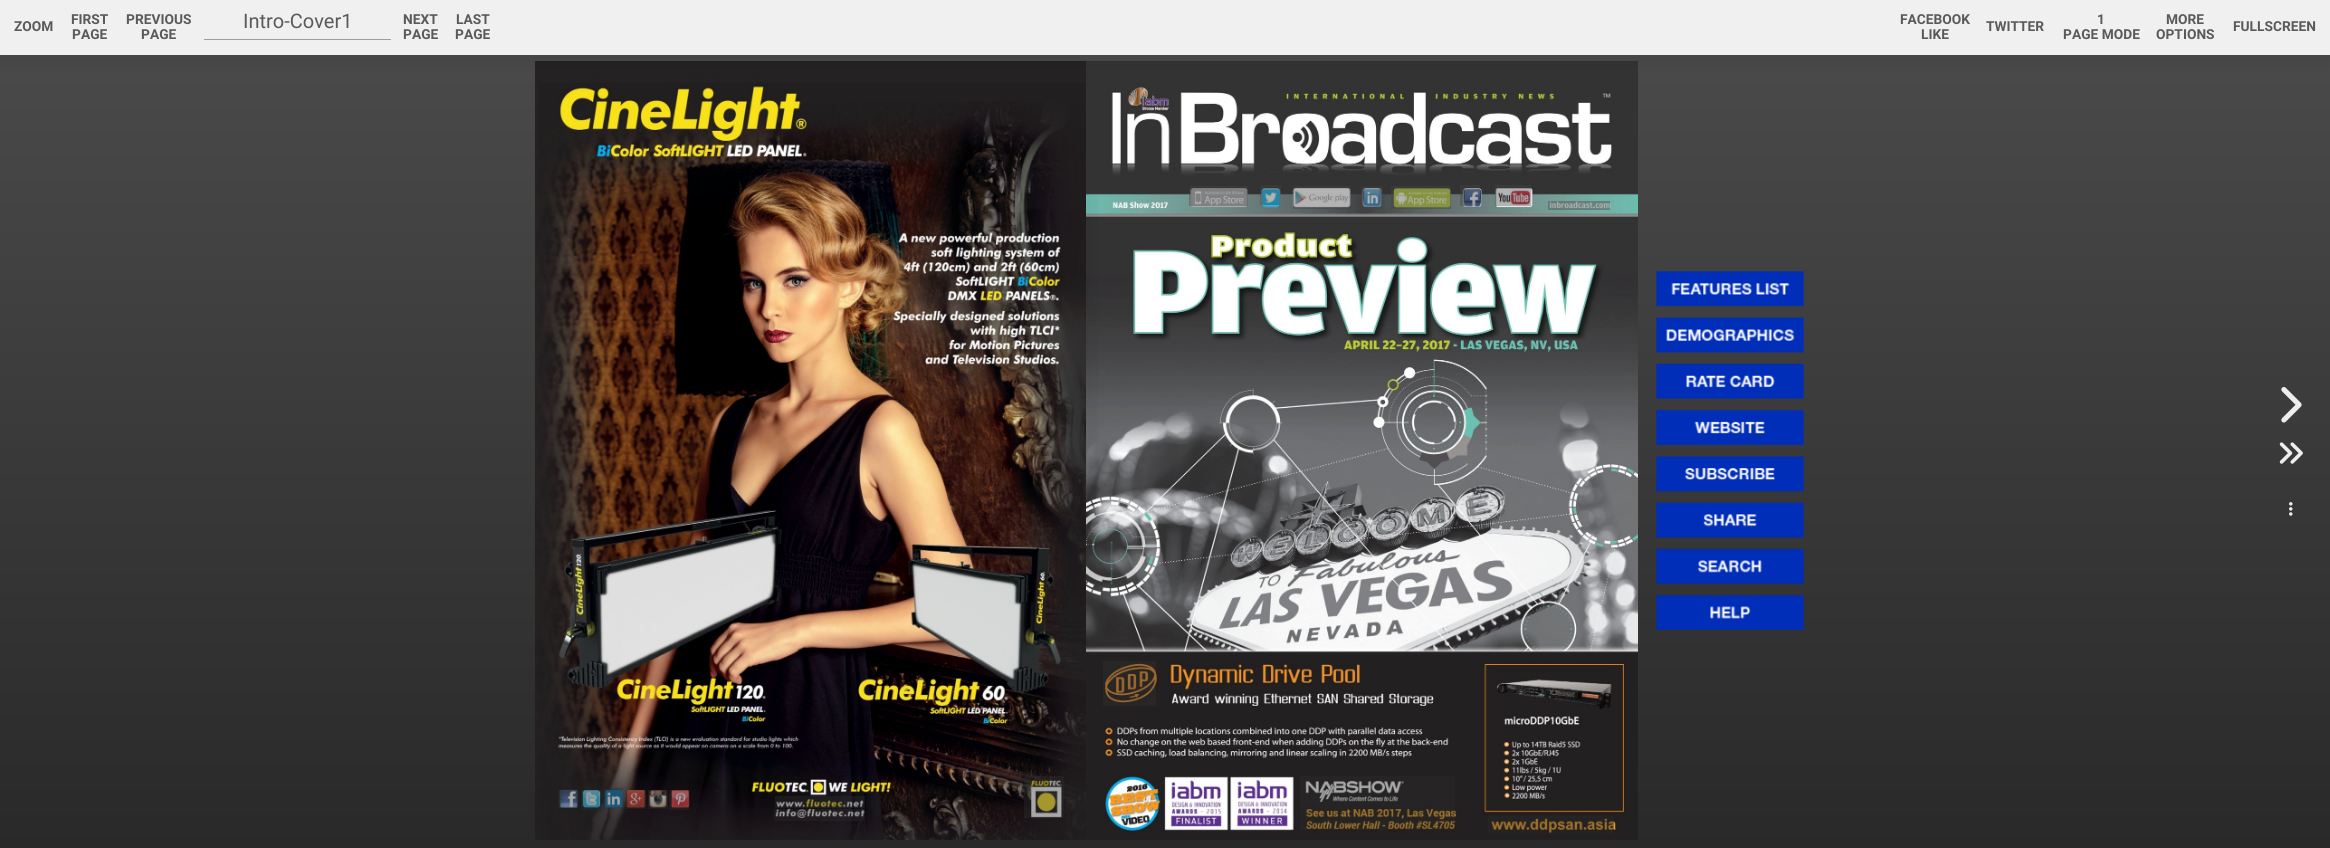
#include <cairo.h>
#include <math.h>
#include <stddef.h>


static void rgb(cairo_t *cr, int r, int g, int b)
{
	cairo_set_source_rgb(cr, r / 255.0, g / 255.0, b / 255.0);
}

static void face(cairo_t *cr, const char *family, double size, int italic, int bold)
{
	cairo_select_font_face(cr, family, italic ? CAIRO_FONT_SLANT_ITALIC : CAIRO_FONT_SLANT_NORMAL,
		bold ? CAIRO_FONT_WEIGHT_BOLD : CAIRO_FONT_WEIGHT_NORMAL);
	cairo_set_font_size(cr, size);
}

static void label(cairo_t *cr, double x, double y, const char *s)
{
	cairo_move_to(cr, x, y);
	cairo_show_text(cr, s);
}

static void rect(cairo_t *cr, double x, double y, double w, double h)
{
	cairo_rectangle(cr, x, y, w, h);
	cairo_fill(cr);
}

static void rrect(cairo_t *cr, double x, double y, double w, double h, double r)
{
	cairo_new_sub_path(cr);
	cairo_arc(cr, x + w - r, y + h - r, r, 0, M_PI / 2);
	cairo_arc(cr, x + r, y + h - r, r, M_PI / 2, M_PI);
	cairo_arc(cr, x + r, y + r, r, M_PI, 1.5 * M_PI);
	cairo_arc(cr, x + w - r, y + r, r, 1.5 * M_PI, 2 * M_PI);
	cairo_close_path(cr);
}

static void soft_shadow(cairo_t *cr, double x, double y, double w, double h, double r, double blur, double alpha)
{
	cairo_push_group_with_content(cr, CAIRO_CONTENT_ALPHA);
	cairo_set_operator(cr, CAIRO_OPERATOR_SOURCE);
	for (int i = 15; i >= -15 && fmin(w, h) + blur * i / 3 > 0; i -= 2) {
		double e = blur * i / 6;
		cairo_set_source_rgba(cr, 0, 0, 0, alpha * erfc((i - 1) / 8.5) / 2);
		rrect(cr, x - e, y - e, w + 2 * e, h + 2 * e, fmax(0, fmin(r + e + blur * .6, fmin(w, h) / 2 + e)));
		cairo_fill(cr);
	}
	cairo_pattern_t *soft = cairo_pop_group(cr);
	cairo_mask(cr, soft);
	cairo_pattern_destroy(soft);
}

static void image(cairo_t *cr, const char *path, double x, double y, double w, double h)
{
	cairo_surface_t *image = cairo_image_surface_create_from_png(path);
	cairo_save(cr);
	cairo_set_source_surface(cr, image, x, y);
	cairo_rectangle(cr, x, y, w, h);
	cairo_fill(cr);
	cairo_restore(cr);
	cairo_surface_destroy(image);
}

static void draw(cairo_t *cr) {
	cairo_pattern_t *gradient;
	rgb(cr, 255, 255, 255);
	cairo_paint(cr);
	gradient = cairo_pattern_create_linear(1165, 0, 1165, 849);
	cairo_pattern_add_color_stop_rgba(gradient, 0, 0.298, 0.298, 0.298, 1);
	cairo_pattern_add_color_stop_rgba(gradient, 1, 0.161, 0.161, 0.161, 1);
	cairo_set_source(cr, gradient);
	cairo_pattern_destroy(gradient);
	rect(cr, 0, 55, 2330, 793);
	image(cr, "image0.png", 535, 61, 551, 779);
	image(cr, "image2.png", 1086, 61, 552, 779);
	image(cr, "image3.png", 1086, 61, 552, 779);
	image(cr, "image4.png", 1086, 61, 552, 779);
	rgb(cr, 0, 0, 0);
	soft_shadow(cr, 0, 0, 2330, 55, 0, 9, 0.14);
	rgb(cr, 240, 240, 240);
	rect(cr, 0, 0, 2330, 55);
	face(cr, "Roboto", 13.75, 0, 1);
	rgb(cr, 90, 90, 90);
	label(cr, 14, 31, "ZOOM");
	label(cr, 71, 24, "FIRST");
	label(cr, 72, 39, "PAGE");
	label(cr, 126, 24, "PREVIOUS");
	label(cr, 141, 39, "PAGE");
	rgb(cr, 158, 158, 158);
	rect(cr, 204, 39, 187, 1);
	face(cr, "Roboto", 20, 0, 0);
	rgb(cr, 90, 90, 90);
	label(cr, 243, 28, "Intro-Cover1");
	face(cr, "Roboto", 13.75, 0, 1);
	label(cr, 403, 24, "NEXT");
	label(cr, 403, 39, "PAGE");
	label(cr, 456, 24, "LAST");
	label(cr, 455, 39, "PAGE");
	label(cr, 1900, 24, "FACEBOOK");
	label(cr, 1921, 39, "LIKE");
	label(cr, 1986, 31, "TWITTER");
	label(cr, 2097, 24, "1");
	label(cr, 2063, 39, "PAGE MODE");
	label(cr, 2166, 24, "MORE");
	label(cr, 2156, 39, "OPTIONS");
	label(cr, 2233, 31, "FULLSCREEN");
	image(cr, "image1.png", 539, 83, 547, 756);
	cairo_set_source_rgba(cr, 0.169, 0.169, 0.169, 0.4);
	rect(cr, 558, 789, 20, 19);
	rect(cr, 581, 790, 18, 20);
	rect(cr, 604, 788, 19, 20);
	rect(cr, 626, 790, 20, 19);
	rect(cr, 648, 790, 20, 19);
	rect(cr, 669, 790, 20, 20);
	rect(cr, 775, 796, 90, 12);
	rect(cr, 1024, 776, 40, 42);
	cairo_set_source_rgba(cr, 0.165, 0.165, 0.165, 0.4);
	rect(cr, 774, 809, 91, 12);
	gradient = cairo_pattern_create_linear(1638, 452, 1086, 452);
	cairo_pattern_add_color_stop_rgba(gradient, 0.95, 0, 0, 0, 0);
	cairo_pattern_add_color_stop_rgba(gradient, 1, 0, 0, 0, 0.04);
	cairo_set_source(cr, gradient);
	cairo_pattern_destroy(gradient);
	rect(cr, 1086, 194, 13, 458);
	cairo_set_source_rgba(cr, 0.267, 0.267, 0.267, 0.4);
	rect(cr, 1189, 186, 59, 20);
	rect(cr, 1260, 185, 21, 20);
	rect(cr, 1293, 186, 58, 23);
	rect(cr, 1361, 186, 22, 23);
	rect(cr, 1391, 186, 60, 23);
	rect(cr, 1460, 185, 20, 21);
	rect(cr, 1495, 185, 36, 21);
	rect(cr, 1548, 201, 62, 9);
	cairo_set_source_rgba(cr, 0.188, 0.188, 0.188, 0.4);
	rect(cr, 1103, 661, 53, 45);
	cairo_set_source_rgba(cr, 0.169, 0.169, 0.169, 0.4);
	rect(cr, 1300, 776, 155, 54);
	cairo_set_source_rgba(cr, 0.165, 0.165, 0.165, 0.4);
	rect(cr, 1488, 815, 126, 19);
	image(cr, "image5.png", 1656, 271, 148, 359);
	image(cr, "image6.png", 2281, 387, 21, 36);
	image(cr, "image7.png", 2279, 442, 24, 22);
	image(cr, "image8.png", 2289, 502, 4, 14);
}

int main(void) {
	cairo_surface_t *surface = cairo_image_surface_create(CAIRO_FORMAT_RGB24, 2330, 848);
	cairo_t *cr = cairo_create(surface);
	cairo_font_options_t *options = cairo_font_options_create();
	cairo_font_options_set_hint_metrics(options, CAIRO_HINT_METRICS_OFF);
	cairo_font_options_set_hint_style(options, CAIRO_HINT_STYLE_NONE);
	cairo_set_font_options(cr, options);
	cairo_set_miter_limit(cr, 4);
	draw(cr);
	cairo_surface_write_to_png(surface, "render.png");
	cairo_font_options_destroy(options);
	cairo_destroy(cr);
	cairo_surface_destroy(surface);
	return 0;
}
